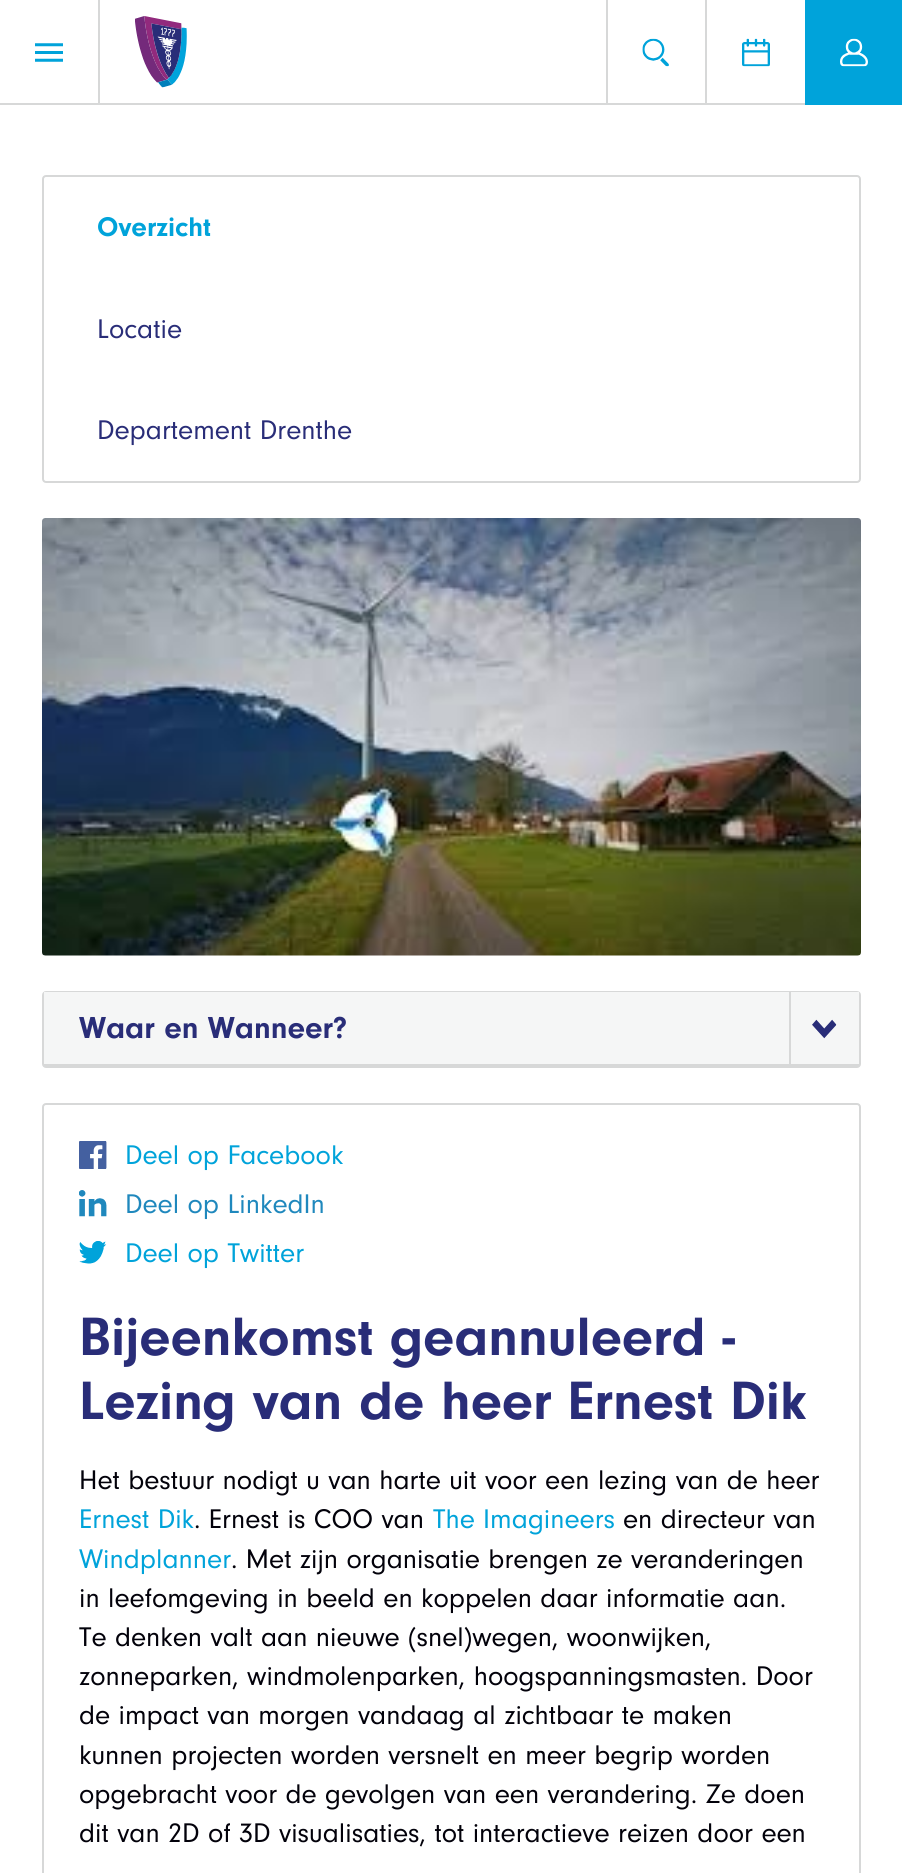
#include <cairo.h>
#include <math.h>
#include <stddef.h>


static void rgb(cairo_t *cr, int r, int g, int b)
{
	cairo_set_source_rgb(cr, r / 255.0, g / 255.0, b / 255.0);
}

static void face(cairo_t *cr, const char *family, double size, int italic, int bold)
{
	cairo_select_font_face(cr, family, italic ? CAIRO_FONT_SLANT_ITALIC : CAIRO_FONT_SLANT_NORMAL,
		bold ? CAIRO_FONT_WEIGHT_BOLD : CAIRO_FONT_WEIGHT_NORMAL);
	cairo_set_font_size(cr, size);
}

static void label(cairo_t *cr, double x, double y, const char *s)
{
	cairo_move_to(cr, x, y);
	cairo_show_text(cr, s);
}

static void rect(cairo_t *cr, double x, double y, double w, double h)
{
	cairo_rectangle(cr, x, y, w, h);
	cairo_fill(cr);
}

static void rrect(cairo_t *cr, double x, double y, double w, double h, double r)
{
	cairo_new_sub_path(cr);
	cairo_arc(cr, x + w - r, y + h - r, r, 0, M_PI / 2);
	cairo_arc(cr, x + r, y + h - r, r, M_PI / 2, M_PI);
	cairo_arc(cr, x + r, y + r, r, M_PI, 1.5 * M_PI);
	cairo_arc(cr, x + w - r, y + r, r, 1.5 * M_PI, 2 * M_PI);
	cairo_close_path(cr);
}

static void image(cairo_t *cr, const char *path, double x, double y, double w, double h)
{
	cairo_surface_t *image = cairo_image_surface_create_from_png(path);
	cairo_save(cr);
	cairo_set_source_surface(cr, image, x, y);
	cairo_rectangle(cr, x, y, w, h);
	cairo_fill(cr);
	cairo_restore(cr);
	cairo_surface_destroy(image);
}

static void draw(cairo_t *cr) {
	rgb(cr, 255, 255, 255);
	cairo_paint(cr);
	rgb(cr, 215, 216, 216);
	rect(cr, 0, 103, 805, 2);
	rect(cr, 98, 0, 2, 103);
	image(cr, "image0.png", 35, 43, 28, 19);
	image(cr, "image1.png", 135, 16, 52, 72);
	rect(cr, 606, 0, 2, 103);
	image(cr, "image2.png", 642, 38, 27, 29);
	rect(cr, 705, 0, 2, 103);
	image(cr, "image3.png", 742, 38, 28, 29);
	rgb(cr, 0, 163, 218);
	rect(cr, 805, 0, 97, 105);
	image(cr, "image4.png", 840, 38, 28, 29);
	rrect(cr, 43, 176, 817, 306, 3);
	rgb(cr, 215, 216, 216);
	cairo_stroke(cr);
	face(cr, "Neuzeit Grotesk", 28, 0, 1);
	rgb(cr, 0, 163, 218);
	label(cr, 97, 236, "Overzicht");
	face(cr, "Neuzeit Grotesk", 28, 0, 0);
	rgb(cr, 41, 45, 120);
	label(cr, 97, 338, "Locatie");
	label(cr, 97, 439, "Departement Drenthe");
	image(cr, "image5.png", 42, 518, 819, 438);
	rrect(cr, 43, 992, 817, 75, 3);
	rgb(cr, 215, 216, 216);
	cairo_stroke(cr);
	rgb(cr, 245, 246, 246);
	rect(cr, 44, 992, 815, 72);
	rgb(cr, 215, 216, 216);
	rect(cr, 44, 1064, 815, 2);
	face(cr, "Neuzeit Grotesk", 31.5, 0, 1);
	rgb(cr, 41, 45, 120);
	label(cr, 79, 1038, "Waar en Wanneer?");
	rgb(cr, 215, 216, 216);
	rect(cr, 789, 992, 2, 72);
	image(cr, "image6.png", 812, 1019, 25, 20);
	rrect(cr, 43, 1104, 817, 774, 3);
	cairo_stroke(cr);
	image(cr, "image7.png", 79, 1141, 28, 28);
	face(cr, "Neuzeit Grotesk", 28, 0, 0);
	rgb(cr, 0, 163, 218);
	label(cr, 125, 1164, "Deel op Facebook");
	image(cr, "image8.png", 79, 1190, 28, 27);
	rgb(cr, 31, 136, 189);
	label(cr, 125, 1213, "Deel op LinkedIn");
	image(cr, "image9.png", 79, 1241, 28, 23);
	rgb(cr, 0, 163, 218);
	label(cr, 125, 1262, "Deel op Twitter");
	face(cr, "Neuzeit Grotesk", 56, 0, 1);
	rgb(cr, 41, 45, 120);
	label(cr, 79, 1355, "Bijeenkomst geannuleerd -");
	label(cr, 79, 1419, "Lezing van de heer Ernest Dik");
	face(cr, "Neuzeit Grotesk", 28, 0, 0);
	rgb(cr, 2, 1, 10);
	label(cr, 79, 1489, "Het bestuur nodigt u van harte uit voor een lezing van de heer");
	rgb(cr, 0, 163, 218);
	label(cr, 79, 1528, "Ernest Dik");
	rgb(cr, 2, 1, 10);
	label(cr, 194, 1528, ". Ernest is COO van");
	rgb(cr, 0, 163, 218);
	label(cr, 433, 1528, "The Imagineers");
	rgb(cr, 2, 1, 10);
	label(cr, 623, 1528, "en directeur van");
	rgb(cr, 0, 163, 218);
	label(cr, 79, 1568, "Windplanner");
	rgb(cr, 2, 1, 10);
	label(cr, 231, 1568, ". Met zijn organisatie brengen ze veranderingen");
	label(cr, 79, 1607, "in leefomgeving in beeld en koppelen daar informatie aan.");
	label(cr, 79, 1646, "Te denken valt aan nieuwe (snel)wegen, woonwijken,");
	label(cr, 79, 1685, "zonneparken, windmolenparken, hoogspanningsmasten. Door");
	label(cr, 79, 1724, "de impact van morgen vandaag al zichtbaar te maken");
	label(cr, 79, 1764, "kunnen projecten worden versnelt en meer begrip worden");
	label(cr, 79, 1803, "opgebracht voor de gevolgen van een verandering. Ze doen");
	label(cr, 79, 1842, "dit van 2D of 3D visualisaties, tot interactieve reizen door een");
}

int main(void) {
	cairo_surface_t *surface = cairo_image_surface_create(CAIRO_FORMAT_RGB24, 902, 1873);
	cairo_t *cr = cairo_create(surface);
	cairo_font_options_t *options = cairo_font_options_create();
	cairo_font_options_set_hint_metrics(options, CAIRO_HINT_METRICS_OFF);
	cairo_font_options_set_hint_style(options, CAIRO_HINT_STYLE_NONE);
	cairo_set_font_options(cr, options);
	cairo_set_miter_limit(cr, 4);
	draw(cr);
	cairo_surface_write_to_png(surface, "render.png");
	cairo_font_options_destroy(options);
	cairo_destroy(cr);
	cairo_surface_destroy(surface);
	return 0;
}
